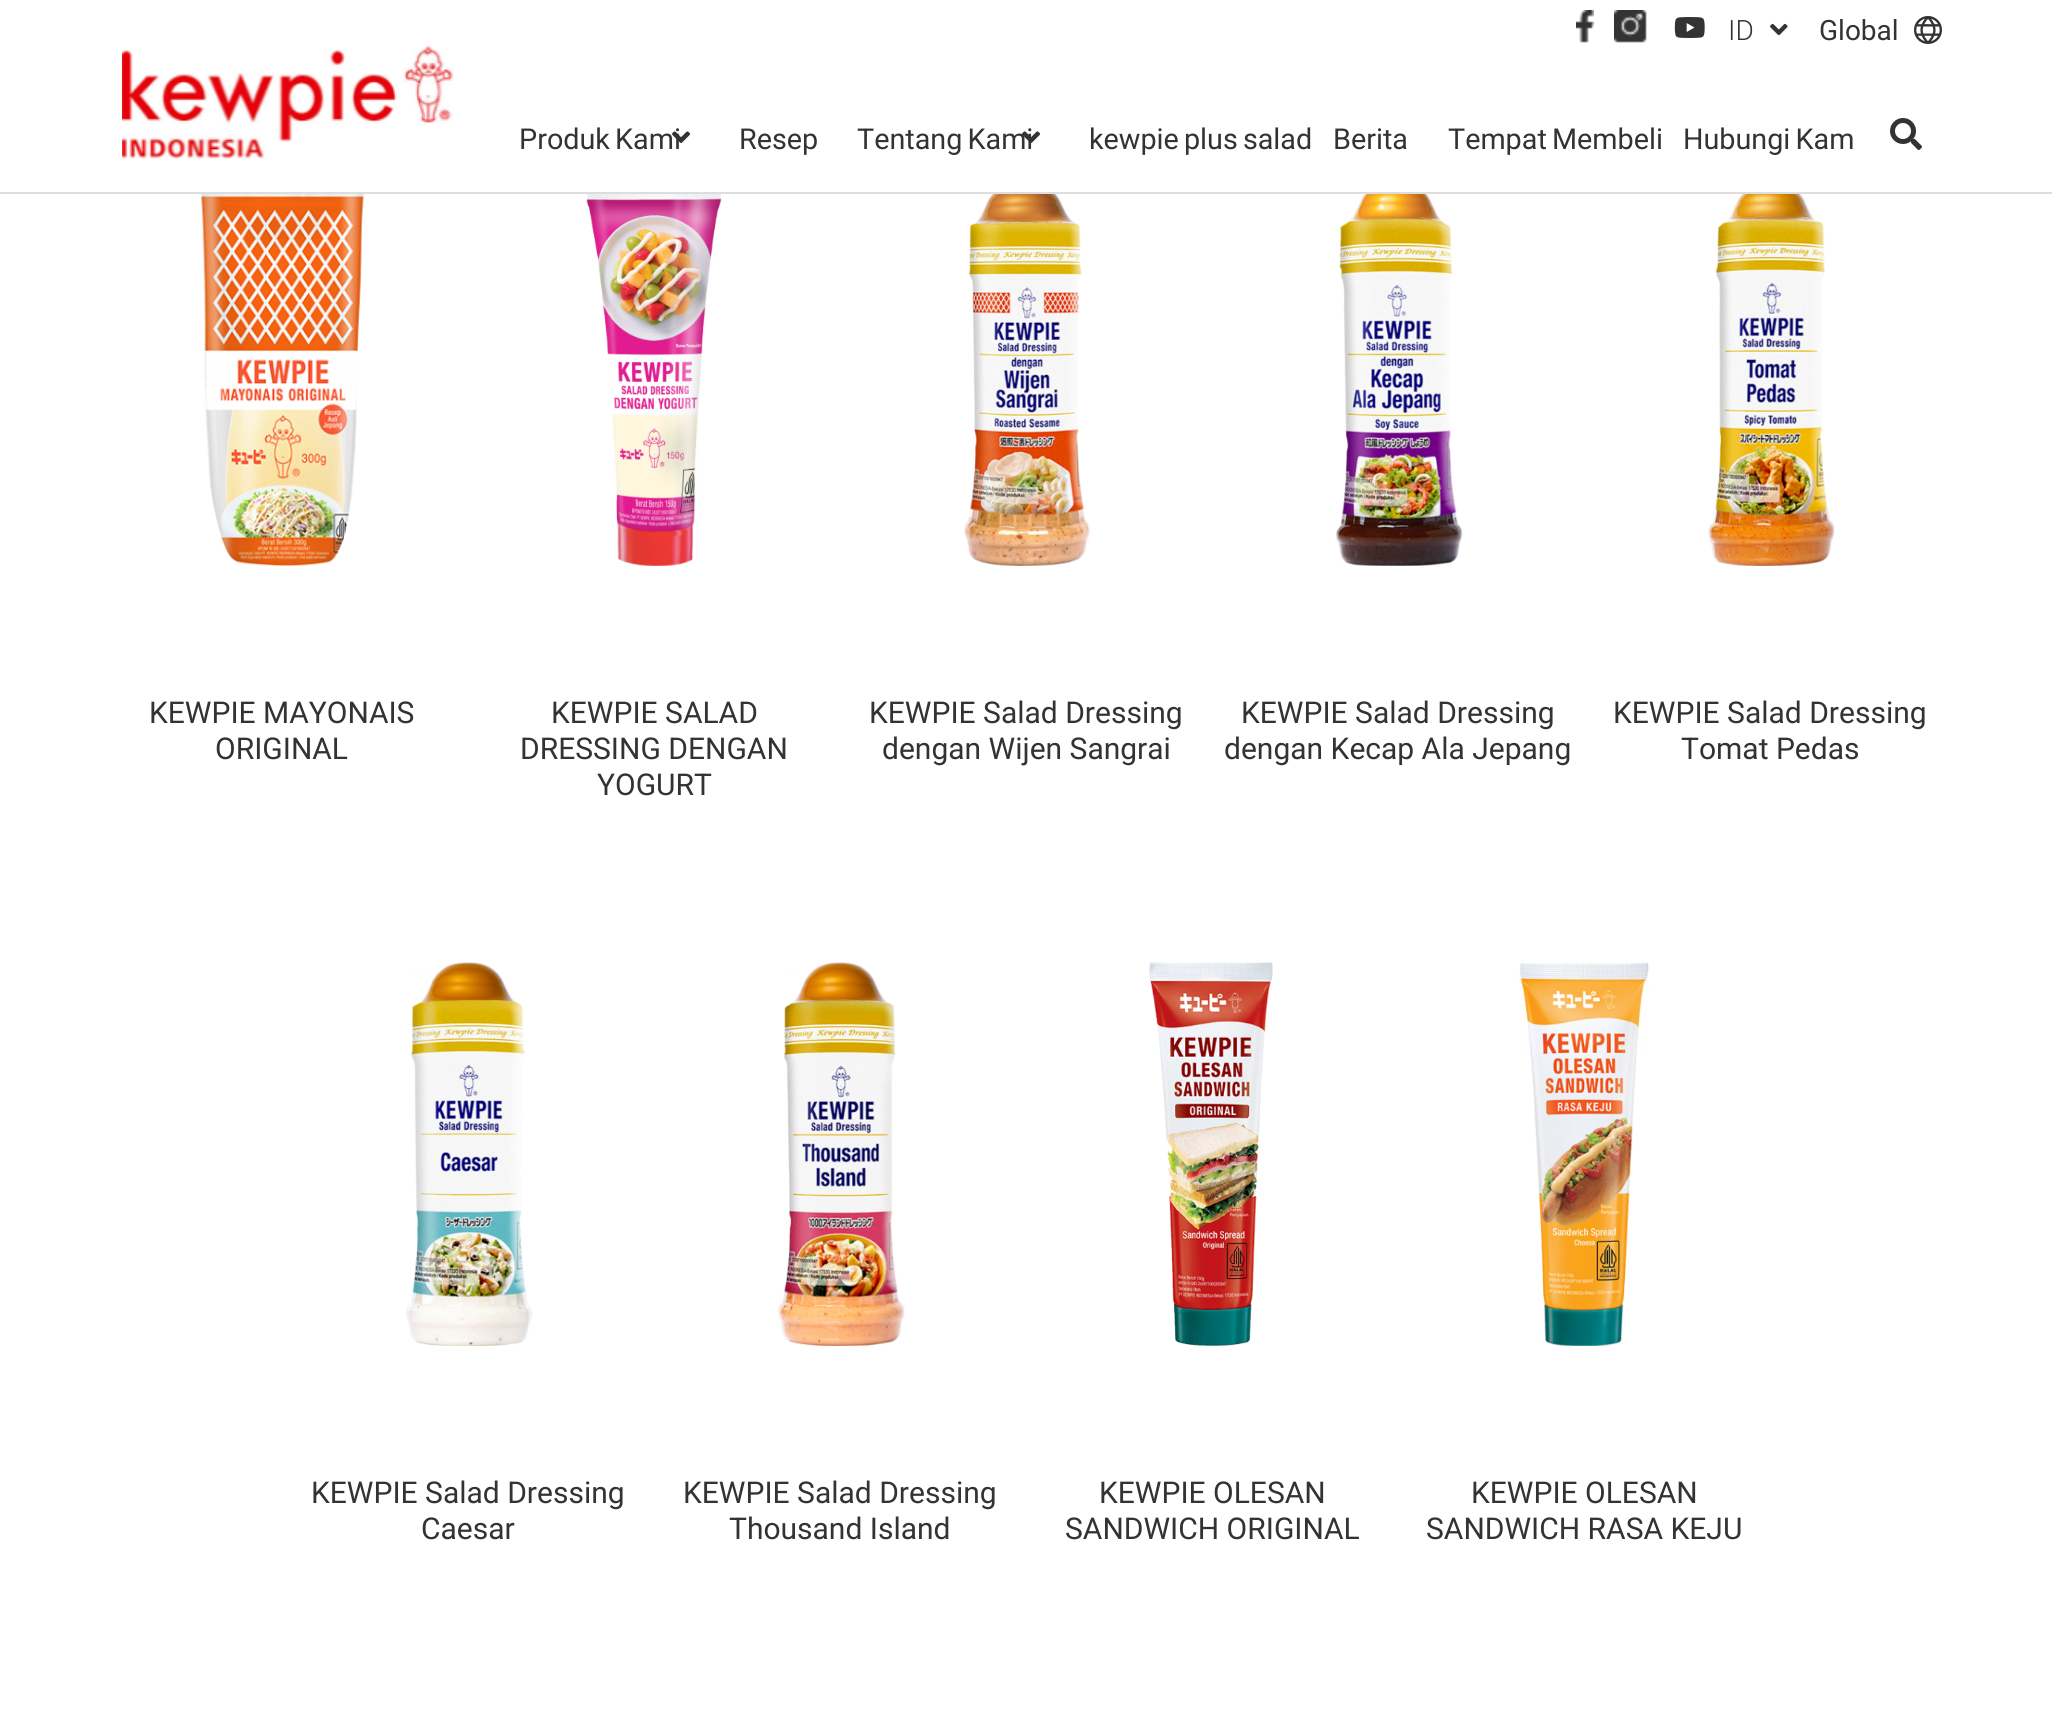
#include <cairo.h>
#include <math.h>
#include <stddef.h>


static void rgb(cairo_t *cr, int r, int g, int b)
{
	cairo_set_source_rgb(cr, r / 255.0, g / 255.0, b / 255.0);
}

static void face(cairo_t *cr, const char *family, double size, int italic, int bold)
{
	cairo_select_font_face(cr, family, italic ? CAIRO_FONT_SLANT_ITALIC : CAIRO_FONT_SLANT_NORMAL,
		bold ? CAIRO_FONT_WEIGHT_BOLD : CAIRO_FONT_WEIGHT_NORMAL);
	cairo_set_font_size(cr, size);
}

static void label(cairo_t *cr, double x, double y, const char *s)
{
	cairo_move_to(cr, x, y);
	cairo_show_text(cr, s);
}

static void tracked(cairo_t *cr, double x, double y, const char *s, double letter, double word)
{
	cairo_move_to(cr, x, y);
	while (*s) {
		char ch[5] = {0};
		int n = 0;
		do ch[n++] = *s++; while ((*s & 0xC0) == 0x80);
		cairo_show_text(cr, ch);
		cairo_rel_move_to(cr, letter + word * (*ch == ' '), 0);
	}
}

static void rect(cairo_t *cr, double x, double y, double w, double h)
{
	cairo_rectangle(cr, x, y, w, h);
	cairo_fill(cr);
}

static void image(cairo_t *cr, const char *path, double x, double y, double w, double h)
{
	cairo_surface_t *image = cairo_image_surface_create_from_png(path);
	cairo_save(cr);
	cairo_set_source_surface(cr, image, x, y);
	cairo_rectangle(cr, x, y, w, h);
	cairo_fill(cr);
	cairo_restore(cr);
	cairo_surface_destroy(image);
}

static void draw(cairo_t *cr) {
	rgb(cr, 255, 255, 255);
	cairo_paint(cr);
	rgb(cr, 221, 221, 221);
	rect(cr, 0, 192, 2052, 2);
	image(cr, "image0.png", 1576, 10, 18, 33);
	image(cr, "image1.png", 1614, 10, 33, 33);
	image(cr, "image2.png", 1674, 17, 31, 21);
	face(cr, "Roboto Light", 28, 0, 0);
	rgb(cr, 51, 51, 51);
	label(cr, 1728, 40, "ID");
	image(cr, "image3.png", 1770, 23, 18, 13);
	face(cr, "Roboto", 28, 0, 0);
	label(cr, 1819, 40, "Global");
	image(cr, "image4.png", 1914, 16, 28, 28);
	image(cr, "image5.png", 122, 45, 332, 114);
	face(cr, "Roboto", 28.75, 0, 0);
	tracked(cr, 519, 149, "Produk Kami", 0, -2);
	image(cr, "image6.png", 672, 131, 18, 12);
	label(cr, 739, 149, "Resep");
	tracked(cr, 857, 149, "Tentang Kami", 0, -2);
	image(cr, "image7.png", 1022, 131, 18, 12);
	tracked(cr, 1089, 149, "kewpie plus salad", 0, -2);
	label(cr, 1333, 149, "Berita");
	tracked(cr, 1448, 149, "Tempat Membeli", 0, -2);
	tracked(cr, 1683, 149, "Hubungi Kam", 0, -2);
	image(cr, "image8.png", 1890, 118, 32, 32);
	image(cr, "image9.png", 200, 194, 164, 372);
	face(cr, "Roboto", 30, 0, 0);
	label(cr, 149, 723, "KEWPIE MAYONAIS");
	label(cr, 215, 759, "ORIGINAL");
	image(cr, "image10.png", 586, 194, 136, 372);
	label(cr, 551, 723, "KEWPIE SALAD");
	label(cr, 520, 759, "DRESSING DENGAN");
	label(cr, 597, 795, "YOGURT");
	image(cr, "image11.png", 964, 194, 127, 372);
	label(cr, 869, 723, "KEWPIE Salad Dressing");
	label(cr, 882, 759, "dengan Wijen Sangrai");
	image(cr, "image12.png", 1336, 194, 127, 372);
	label(cr, 1241, 723, "KEWPIE Salad Dressing");
	label(cr, 1224, 759, "dengan Kecap Ala Jepang");
	image(cr, "image13.png", 1708, 194, 127, 372);
	label(cr, 1613, 723, "KEWPIE Salad Dressing");
	label(cr, 1681, 759, "Tomat Pedas");
	image(cr, "image14.png", 406, 962, 127, 384);
	label(cr, 311, 1503, "KEWPIE Salad Dressing");
	label(cr, 421, 1539, "Caesar");
	image(cr, "image15.png", 778, 962, 127, 384);
	label(cr, 683, 1503, "KEWPIE Salad Dressing");
	label(cr, 729, 1539, "Thousand Island");
	image(cr, "image16.png", 1149, 962, 124, 384);
	label(cr, 1099, 1503, "KEWPIE OLESAN");
	label(cr, 1065, 1539, "SANDWICH ORIGINAL");
	image(cr, "image17.png", 1519, 962, 130, 384);
	label(cr, 1471, 1503, "KEWPIE OLESAN");
	label(cr, 1426, 1539, "SANDWICH RASA KEJU");
}

int main(void) {
	cairo_surface_t *surface = cairo_image_surface_create(CAIRO_FORMAT_RGB24, 2052, 1729);
	cairo_t *cr = cairo_create(surface);
	cairo_font_options_t *options = cairo_font_options_create();
	cairo_font_options_set_hint_metrics(options, CAIRO_HINT_METRICS_OFF);
	cairo_font_options_set_hint_style(options, CAIRO_HINT_STYLE_NONE);
	cairo_set_font_options(cr, options);
	cairo_set_miter_limit(cr, 4);
	draw(cr);
	cairo_surface_write_to_png(surface, "render.png");
	cairo_font_options_destroy(options);
	cairo_destroy(cr);
	cairo_surface_destroy(surface);
	return 0;
}
